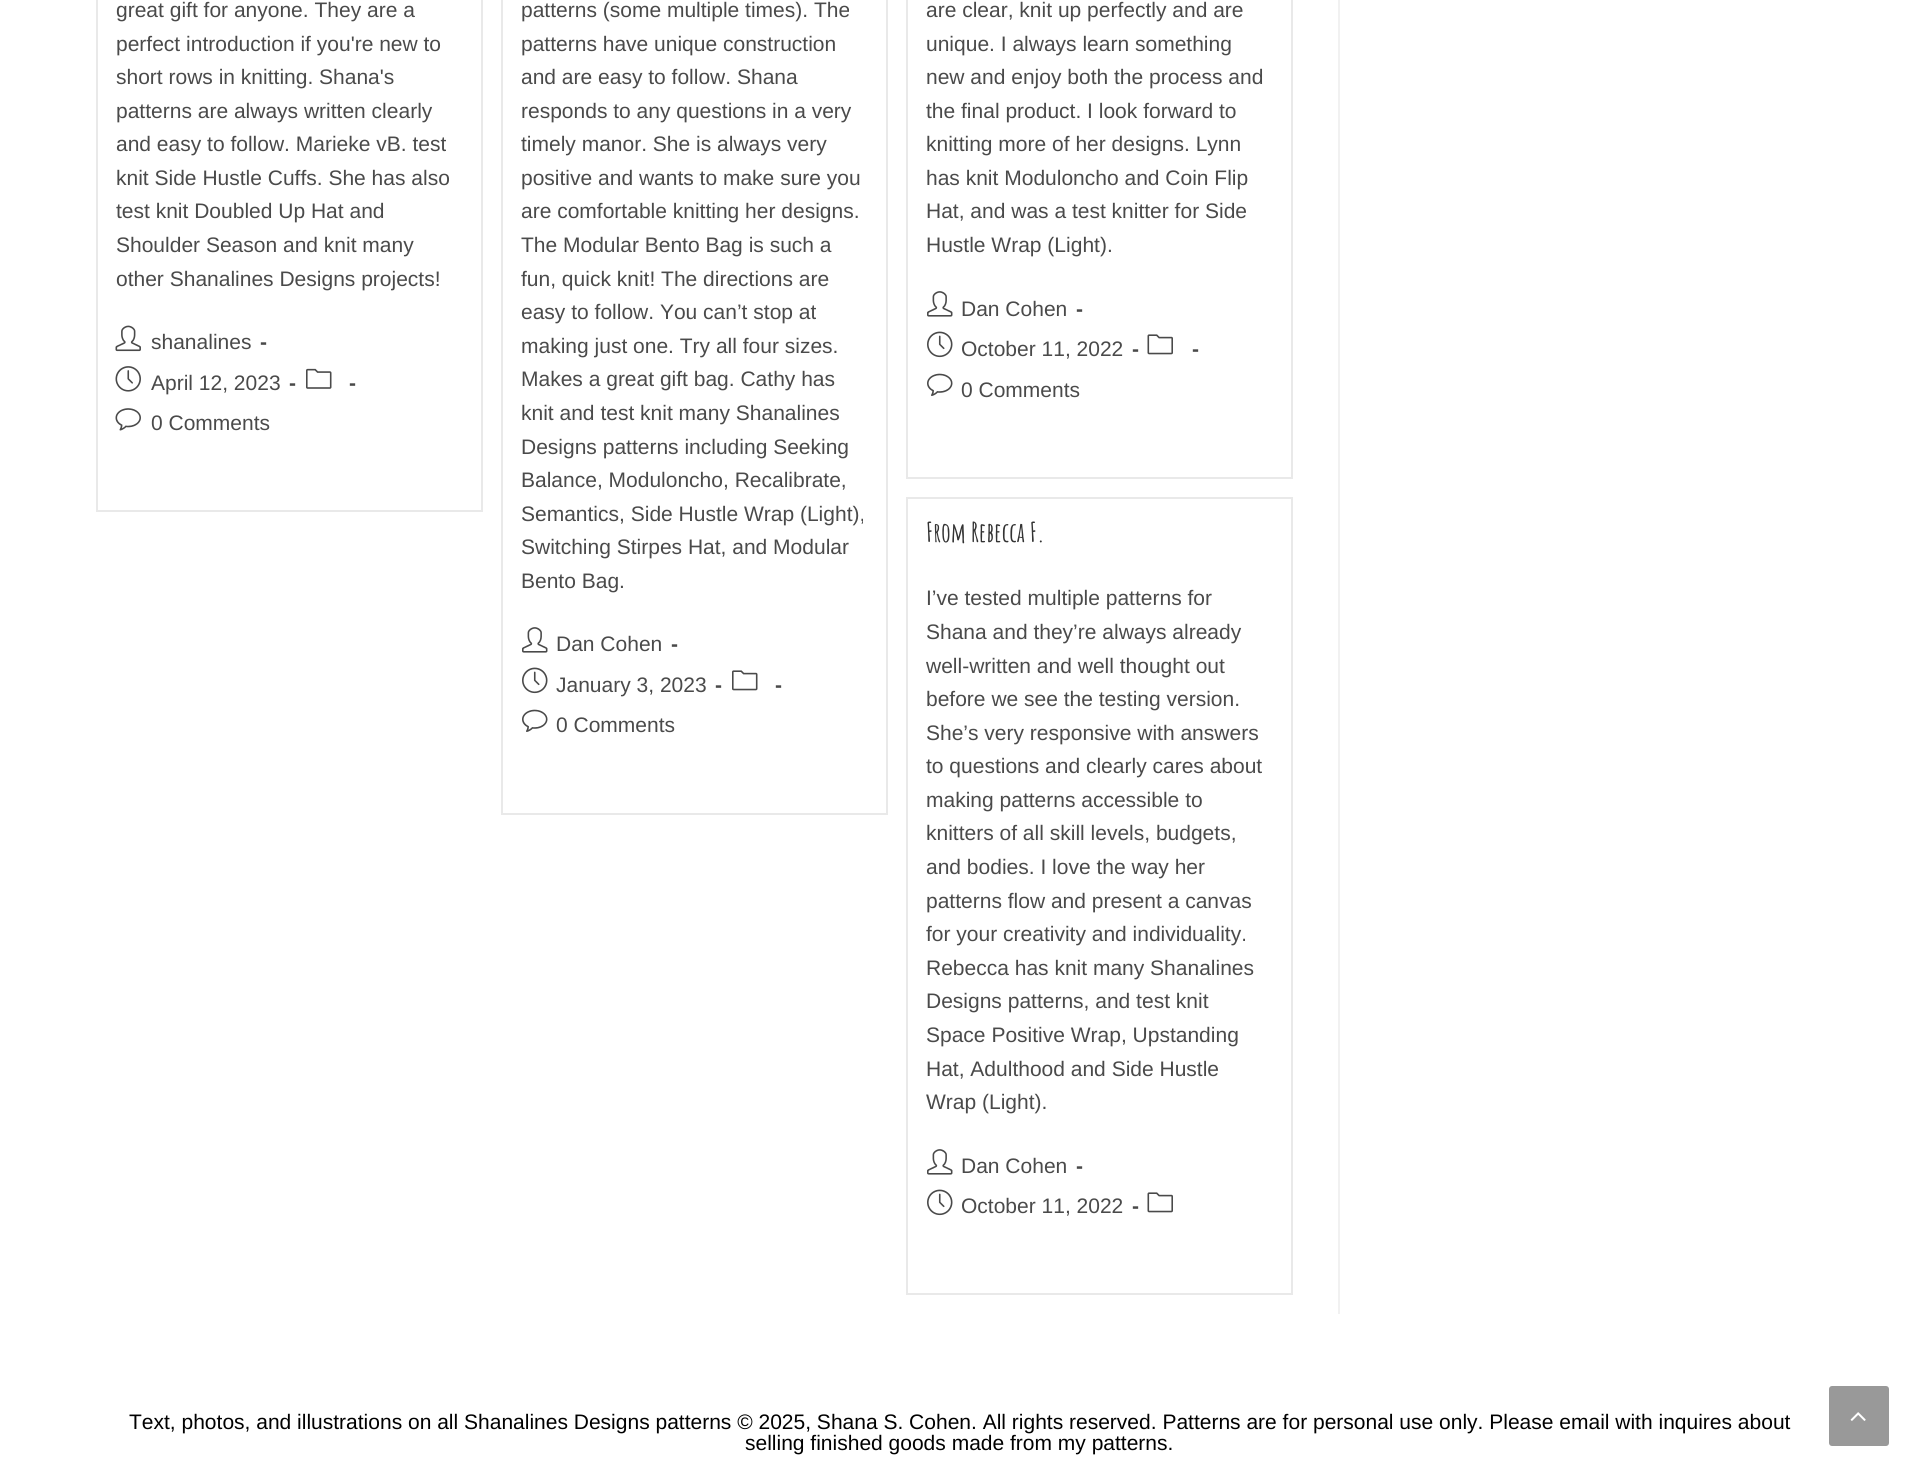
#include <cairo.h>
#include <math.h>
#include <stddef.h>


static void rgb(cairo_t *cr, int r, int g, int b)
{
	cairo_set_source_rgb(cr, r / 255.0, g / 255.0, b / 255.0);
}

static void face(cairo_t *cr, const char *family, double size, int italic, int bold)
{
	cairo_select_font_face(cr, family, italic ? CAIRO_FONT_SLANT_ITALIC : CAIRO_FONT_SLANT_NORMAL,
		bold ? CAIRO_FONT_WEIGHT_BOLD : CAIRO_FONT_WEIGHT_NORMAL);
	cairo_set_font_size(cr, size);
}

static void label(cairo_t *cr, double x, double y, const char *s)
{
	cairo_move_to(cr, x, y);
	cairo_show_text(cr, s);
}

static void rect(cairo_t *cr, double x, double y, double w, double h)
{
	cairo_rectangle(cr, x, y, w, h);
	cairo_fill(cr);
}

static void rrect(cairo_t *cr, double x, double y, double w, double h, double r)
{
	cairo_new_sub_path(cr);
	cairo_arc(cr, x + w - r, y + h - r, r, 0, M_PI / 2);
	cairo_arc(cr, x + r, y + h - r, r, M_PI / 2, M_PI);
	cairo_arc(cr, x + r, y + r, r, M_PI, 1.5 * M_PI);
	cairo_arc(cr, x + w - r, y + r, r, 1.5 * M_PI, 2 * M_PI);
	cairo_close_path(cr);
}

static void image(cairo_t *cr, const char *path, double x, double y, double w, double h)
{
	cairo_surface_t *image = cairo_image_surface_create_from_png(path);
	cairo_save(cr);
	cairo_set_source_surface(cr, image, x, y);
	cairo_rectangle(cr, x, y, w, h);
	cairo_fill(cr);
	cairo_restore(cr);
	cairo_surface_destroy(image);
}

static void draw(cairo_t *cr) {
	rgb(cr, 255, 255, 255);
	cairo_paint(cr);
	rgb(cr, 241, 241, 241);
	rect(cr, 1338, 0, 2, 1314);
	cairo_rectangle(cr, 97, -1, 385, 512);
	rgb(cr, 233, 233, 233);
	cairo_stroke(cr);
	face(cr, "Liberation Sans", 21, 0, 0);
	rgb(cr, 74, 74, 74);
	label(cr, 116, 17, "great gift for anyone. They are a");
	label(cr, 116, 51, "perfect introduction if you're new to");
	label(cr, 116, 84, "short rows in knitting. Shana's");
	label(cr, 116, 118, "patterns are always written clearly");
	label(cr, 116, 151, "and easy to follow. Marieke vB. test");
	label(cr, 116, 185, "knit Side Hustle Cuffs. She has also");
	label(cr, 116, 218, "test knit Doubled Up Hat and");
	label(cr, 116, 252, "Shoulder Season and knit many");
	label(cr, 116, 286, "other Shanalines Designs projects!");
	image(cr, "image0.png", 115, 325, 26, 27);
	label(cr, 151, 349, "shanalines");
	face(cr, "Liberation Sans", 21, 0, 1);
	label(cr, 260, 349, "-");
	image(cr, "image1.png", 115, 366, 26, 26);
	face(cr, "Liberation Sans", 21, 0, 0);
	label(cr, 151, 390, "April 12, 2023");
	face(cr, "Liberation Sans", 21, 0, 1);
	label(cr, 289, 390, "-");
	image(cr, "image2.png", 306, 368, 26, 21);
	label(cr, 349, 390, "-");
	image(cr, "image3.png", 115, 408, 26, 23);
	face(cr, "Liberation Sans", 21, 0, 0);
	label(cr, 151, 430, "0 Comments");
	cairo_rectangle(cr, 502, -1, 385, 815);
	rgb(cr, 233, 233, 233);
	cairo_stroke(cr);
	rgb(cr, 74, 74, 74);
	label(cr, 521, 17, "patterns (some multiple times). The");
	label(cr, 521, 51, "patterns have unique construction");
	label(cr, 521, 84, "and are easy to follow. Shana");
	label(cr, 521, 118, "responds to any questions in a very");
	label(cr, 521, 151, "timely manor. She is always very");
	label(cr, 521, 185, "positive and wants to make sure you");
	label(cr, 521, 218, "are comfortable knitting her designs.");
	label(cr, 521, 252, "The Modular Bento Bag is such a");
	label(cr, 521, 286, "fun, quick knit! The directions are");
	label(cr, 521, 319, "easy to follow. You can’t stop at");
	label(cr, 521, 353, "making just one. Try all four sizes.");
	label(cr, 521, 386, "Makes a great gift bag. Cathy has");
	label(cr, 521, 420, "knit and test knit many Shanalines");
	label(cr, 521, 454, "Designs patterns including Seeking");
	label(cr, 521, 487, "Balance, Moduloncho, Recalibrate,");
	label(cr, 521, 521, "Semantics, Side Hustle Wrap (Light),");
	label(cr, 521, 554, "Switching Stirpes Hat, and Modular");
	label(cr, 521, 588, "Bento Bag.");
	image(cr, "image4.png", 522, 627, 26, 26);
	label(cr, 556, 651, "Dan Cohen");
	face(cr, "Liberation Sans", 21, 0, 1);
	label(cr, 671, 651, "-");
	image(cr, "image5.png", 522, 667, 26, 27);
	face(cr, "Liberation Sans", 21, 0, 0);
	label(cr, 556, 692, "January 3, 2023");
	face(cr, "Liberation Sans", 21, 0, 1);
	label(cr, 715, 692, "-");
	image(cr, "image6.png", 732, 670, 26, 21);
	label(cr, 775, 692, "-");
	image(cr, "image7.png", 522, 709, 26, 23);
	face(cr, "Liberation Sans", 21, 0, 0);
	label(cr, 556, 732, "0 Comments");
	cairo_rectangle(cr, 907, -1, 385, 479);
	rgb(cr, 233, 233, 233);
	cairo_stroke(cr);
	rgb(cr, 74, 74, 74);
	label(cr, 926, 17, "are clear, knit up perfectly and are");
	label(cr, 926, 51, "unique. I always learn something");
	label(cr, 926, 84, "new and enjoy both the process and");
	label(cr, 926, 118, "the final product. I look forward to");
	label(cr, 926, 151, "knitting more of her designs. Lynn");
	label(cr, 926, 185, "has knit Moduloncho and Coin Flip");
	label(cr, 926, 218, "Hat, and was a test knitter for Side");
	label(cr, 926, 252, "Hustle Wrap (Light).");
	image(cr, "image4.png", 927, 291, 26, 26);
	label(cr, 961, 316, "Dan Cohen");
	face(cr, "Liberation Sans", 21, 0, 1);
	label(cr, 1076, 316, "-");
	image(cr, "image5.png", 927, 331, 26, 27);
	face(cr, "Liberation Sans", 21, 0, 0);
	label(cr, 961, 356, "October 11, 2022");
	face(cr, "Liberation Sans", 21, 0, 1);
	label(cr, 1132, 356, "-");
	image(cr, "image8.png", 1147, 334, 26, 21);
	label(cr, 1192, 356, "-");
	image(cr, "image7.png", 927, 373, 26, 23);
	face(cr, "Liberation Sans", 21, 0, 0);
	label(cr, 961, 397, "0 Comments");
	cairo_rectangle(cr, 907, 498, 385, 796);
	rgb(cr, 233, 233, 233);
	cairo_stroke(cr);
	face(cr, "Amatic SC", 27, 0, 1);
	rgb(cr, 51, 51, 51);
	label(cr, 926, 542, "From Rebecca F.");
	face(cr, "Liberation Sans", 21, 0, 0);
	rgb(cr, 74, 74, 74);
	label(cr, 926, 605, "I’ve tested multiple patterns for");
	label(cr, 926, 639, "Shana and they’re always already");
	label(cr, 926, 673, "well-written and well thought out");
	label(cr, 926, 706, "before we see the testing version.");
	label(cr, 926, 740, "She’s very responsive with answers");
	label(cr, 926, 773, "to questions and clearly cares about");
	label(cr, 926, 807, "making patterns accessible to");
	label(cr, 926, 840, "knitters of all skill levels, budgets,");
	label(cr, 926, 874, "and bodies. I love the way her");
	label(cr, 926, 908, "patterns flow and present a canvas");
	label(cr, 926, 941, "for your creativity and individuality.");
	label(cr, 926, 975, "Rebecca has knit many Shanalines");
	label(cr, 926, 1008, "Designs patterns, and test knit");
	label(cr, 926, 1042, "Space Positive Wrap, Upstanding");
	label(cr, 926, 1076, "Hat, Adulthood and Side Hustle");
	label(cr, 926, 1109, "Wrap (Light).");
	image(cr, "image4.png", 927, 1149, 26, 26);
	label(cr, 961, 1173, "Dan Cohen");
	face(cr, "Liberation Sans", 21, 0, 1);
	label(cr, 1076, 1173, "-");
	image(cr, "image5.png", 927, 1189, 26, 27);
	face(cr, "Liberation Sans", 21, 0, 0);
	label(cr, 961, 1213, "October 11, 2022");
	face(cr, "Liberation Sans", 21, 0, 1);
	label(cr, 1132, 1213, "-");
	image(cr, "image8.png", 1147, 1192, 26, 21);
	face(cr, "Liberation Sans", 21, 0, 0);
	rgb(cr, 0, 0, 0);
	label(cr, 129, 1429, "Text, photos, and illustrations on all Shanalines Designs patterns © 2025, Shana S. Cohen. All rights reserved. Patterns are for personal use only. Please email with inquires about");
	label(cr, 745, 1450, "selling finished goods made from my patterns.");
	rgb(cr, 153, 153, 153);
	rrect(cr, 1829, 1386, 60, 60, 3);
	cairo_fill(cr);
	image(cr, "image9.png", 1850, 1412, 16, 9);
}

int main(void) {
	cairo_surface_t *surface = cairo_image_surface_create(CAIRO_FORMAT_RGB24, 1918, 1476);
	cairo_t *cr = cairo_create(surface);
	cairo_font_options_t *options = cairo_font_options_create();
	cairo_font_options_set_hint_metrics(options, CAIRO_HINT_METRICS_OFF);
	cairo_font_options_set_hint_style(options, CAIRO_HINT_STYLE_NONE);
	cairo_set_font_options(cr, options);
	cairo_set_miter_limit(cr, 4);
	draw(cr);
	cairo_surface_write_to_png(surface, "render.png");
	cairo_font_options_destroy(options);
	cairo_destroy(cr);
	cairo_surface_destroy(surface);
	return 0;
}
